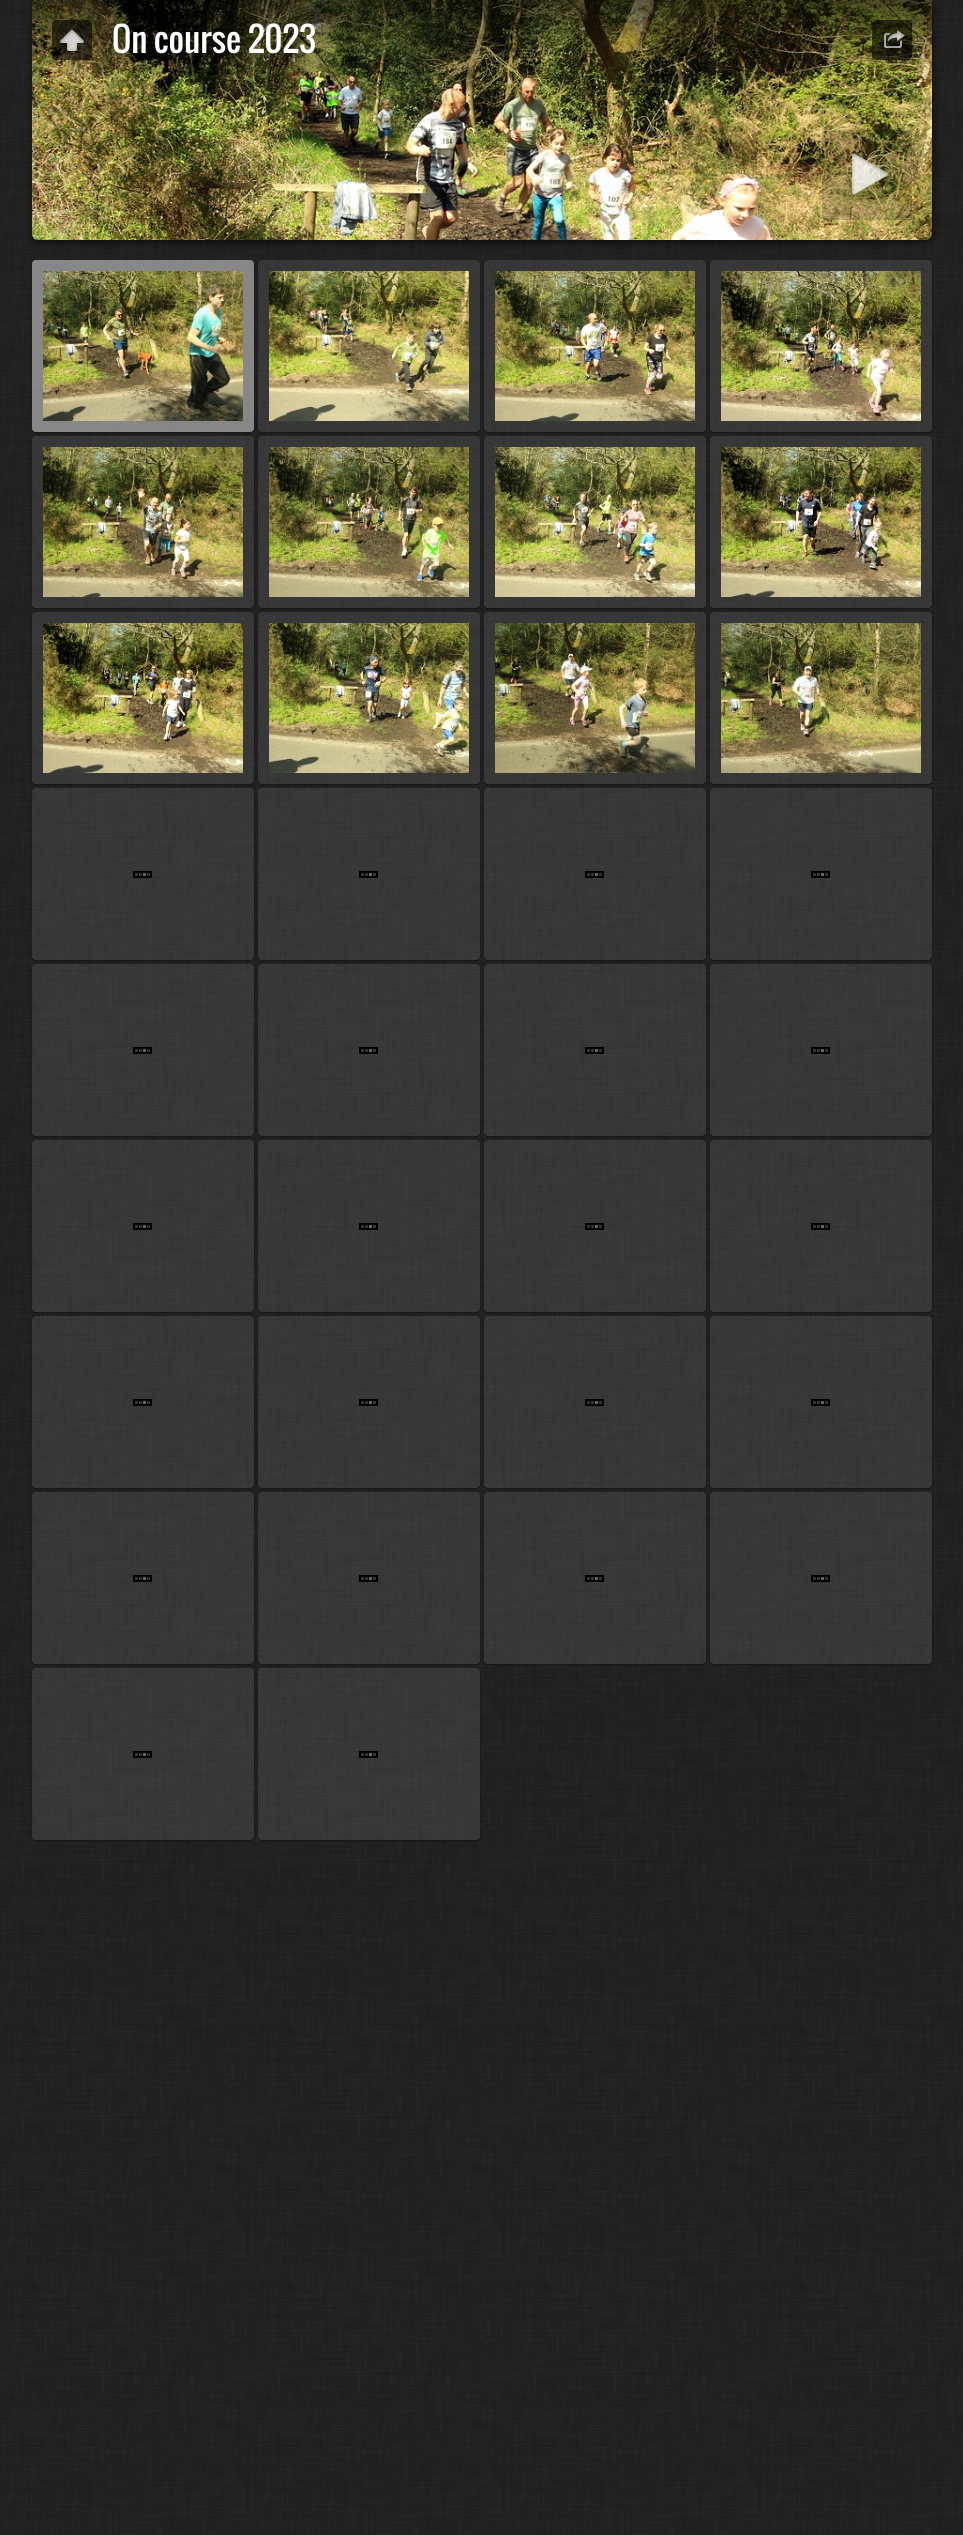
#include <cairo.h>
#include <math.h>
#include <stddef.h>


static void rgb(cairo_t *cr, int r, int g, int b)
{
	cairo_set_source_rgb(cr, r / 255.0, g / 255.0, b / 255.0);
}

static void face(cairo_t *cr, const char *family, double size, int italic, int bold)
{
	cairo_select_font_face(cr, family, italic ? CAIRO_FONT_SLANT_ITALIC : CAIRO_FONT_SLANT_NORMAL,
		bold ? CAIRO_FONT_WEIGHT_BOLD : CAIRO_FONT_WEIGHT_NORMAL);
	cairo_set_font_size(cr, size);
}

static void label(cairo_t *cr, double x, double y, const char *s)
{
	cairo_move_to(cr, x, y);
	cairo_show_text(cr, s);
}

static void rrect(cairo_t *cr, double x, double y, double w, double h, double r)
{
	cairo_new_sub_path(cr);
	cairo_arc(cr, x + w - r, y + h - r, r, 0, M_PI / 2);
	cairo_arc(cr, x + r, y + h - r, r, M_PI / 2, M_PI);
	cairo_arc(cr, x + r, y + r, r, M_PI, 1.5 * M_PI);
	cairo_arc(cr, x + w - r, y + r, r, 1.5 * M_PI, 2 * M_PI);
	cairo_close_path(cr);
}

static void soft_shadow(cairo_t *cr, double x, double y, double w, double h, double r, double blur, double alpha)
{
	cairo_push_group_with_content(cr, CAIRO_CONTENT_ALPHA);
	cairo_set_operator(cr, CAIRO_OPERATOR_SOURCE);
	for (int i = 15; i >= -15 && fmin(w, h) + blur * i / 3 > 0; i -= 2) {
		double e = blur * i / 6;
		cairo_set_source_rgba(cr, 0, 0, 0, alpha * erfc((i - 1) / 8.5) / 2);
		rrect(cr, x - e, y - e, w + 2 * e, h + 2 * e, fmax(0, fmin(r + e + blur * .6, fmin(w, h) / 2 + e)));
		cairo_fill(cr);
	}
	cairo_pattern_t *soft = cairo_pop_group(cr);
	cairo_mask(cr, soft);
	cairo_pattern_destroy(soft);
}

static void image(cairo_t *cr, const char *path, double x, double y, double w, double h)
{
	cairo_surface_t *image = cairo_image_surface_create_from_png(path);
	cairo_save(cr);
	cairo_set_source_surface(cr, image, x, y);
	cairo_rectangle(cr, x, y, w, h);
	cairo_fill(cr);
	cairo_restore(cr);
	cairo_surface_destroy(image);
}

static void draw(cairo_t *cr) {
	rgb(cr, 34, 34, 34);
	cairo_paint(cr);
	image(cr, "image0.png", 0, 0, 963, 2535);
	rgb(cr, 0, 0, 0);
	soft_shadow(cr, 33, 3, 900, 240, 6, 4, 0.6);
	image(cr, "image1.png", 32, 0, 900, 240);
	cairo_set_source_rgba(cr, 0, 0, 0, 0.6);
	rrect(cr, 52, 20, 40, 40, 4);
	cairo_fill(cr);
	image(cr, "image2.png", 60, 29, 24, 22);
	face(cr, "Oswald", 33.5, 0, 0);
	rgb(cr, 255, 255, 255);
	label(cr, 112, 53, "On course 2023");
	cairo_set_source_rgba(cr, 0, 0, 0, 0.6);
	rrect(cr, 872, 20, 40, 40, 4);
	cairo_fill(cr);
	image(cr, "image3.png", 884, 30, 21, 18);
	cairo_set_source_rgba(cr, 0, 0, 0, 0.2);
	rrect(cr, 822, 130, 90, 90, 4);
	cairo_fill(cr);
	image(cr, "image4.png", 852, 153, 36, 42);
	cairo_save(cr);
	cairo_set_fill_rule(cr, CAIRO_FILL_RULE_EVEN_ODD);
	cairo_new_path(cr);
	cairo_move_to(cr, 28, 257);
	cairo_line_to(cr, 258, 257);
	cairo_line_to(cr, 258, 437);
	cairo_line_to(cr, 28, 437);
	cairo_close_path(cr);
	cairo_move_to(cr, 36, 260);
	cairo_line_to(cr, 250, 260);
	cairo_curve_to(cr, 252, 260, 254, 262, 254, 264);
	cairo_line_to(cr, 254, 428);
	cairo_curve_to(cr, 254, 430, 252, 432, 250, 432);
	cairo_line_to(cr, 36, 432);
	cairo_curve_to(cr, 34, 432, 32, 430, 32, 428);
	cairo_line_to(cr, 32, 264);
	cairo_curve_to(cr, 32, 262, 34, 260, 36, 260);
	cairo_close_path(cr);
	cairo_clip(cr);
	rgb(cr, 0, 0, 0);
	soft_shadow(cr, 32, 261, 222, 172, 4, 1, 0.4);
	cairo_restore(cr);
	cairo_set_source_rgba(cr, 1, 1, 1, 0.1);
	rrect(cr, 32, 260, 222, 172, 4);
	cairo_fill(cr);
	cairo_set_source_rgba(cr, 1, 1, 1, 0.4);
	rrect(cr, 32, 260, 222, 172, 4);
	cairo_fill(cr);
	image(cr, "image5.png", 43, 271, 200, 150);
	cairo_save(cr);
	cairo_set_fill_rule(cr, CAIRO_FILL_RULE_EVEN_ODD);
	cairo_new_path(cr);
	cairo_move_to(cr, 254, 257);
	cairo_line_to(cr, 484, 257);
	cairo_line_to(cr, 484, 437);
	cairo_line_to(cr, 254, 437);
	cairo_close_path(cr);
	cairo_move_to(cr, 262, 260);
	cairo_line_to(cr, 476, 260);
	cairo_curve_to(cr, 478, 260, 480, 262, 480, 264);
	cairo_line_to(cr, 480, 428);
	cairo_curve_to(cr, 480, 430, 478, 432, 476, 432);
	cairo_line_to(cr, 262, 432);
	cairo_curve_to(cr, 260, 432, 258, 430, 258, 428);
	cairo_line_to(cr, 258, 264);
	cairo_curve_to(cr, 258, 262, 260, 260, 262, 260);
	cairo_close_path(cr);
	cairo_clip(cr);
	rgb(cr, 0, 0, 0);
	soft_shadow(cr, 258, 261, 222, 172, 4, 1, 0.4);
	cairo_restore(cr);
	cairo_set_source_rgba(cr, 1, 1, 1, 0.1);
	rrect(cr, 258, 260, 222, 172, 4);
	cairo_fill(cr);
	image(cr, "image6.png", 269, 271, 200, 150);
	cairo_save(cr);
	cairo_set_fill_rule(cr, CAIRO_FILL_RULE_EVEN_ODD);
	cairo_new_path(cr);
	cairo_move_to(cr, 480, 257);
	cairo_line_to(cr, 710, 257);
	cairo_line_to(cr, 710, 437);
	cairo_line_to(cr, 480, 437);
	cairo_close_path(cr);
	cairo_move_to(cr, 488, 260);
	cairo_line_to(cr, 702, 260);
	cairo_curve_to(cr, 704, 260, 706, 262, 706, 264);
	cairo_line_to(cr, 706, 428);
	cairo_curve_to(cr, 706, 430, 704, 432, 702, 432);
	cairo_line_to(cr, 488, 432);
	cairo_curve_to(cr, 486, 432, 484, 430, 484, 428);
	cairo_line_to(cr, 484, 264);
	cairo_curve_to(cr, 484, 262, 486, 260, 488, 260);
	cairo_close_path(cr);
	cairo_clip(cr);
	rgb(cr, 0, 0, 0);
	soft_shadow(cr, 484, 261, 222, 172, 4, 1, 0.4);
	cairo_restore(cr);
	rrect(cr, 484, 260, 222, 172, 4);
	cairo_fill(cr);
	image(cr, "image7.png", 495, 271, 200, 150);
	cairo_save(cr);
	cairo_set_fill_rule(cr, CAIRO_FILL_RULE_EVEN_ODD);
	cairo_new_path(cr);
	cairo_move_to(cr, 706, 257);
	cairo_line_to(cr, 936, 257);
	cairo_line_to(cr, 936, 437);
	cairo_line_to(cr, 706, 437);
	cairo_close_path(cr);
	cairo_move_to(cr, 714, 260);
	cairo_line_to(cr, 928, 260);
	cairo_curve_to(cr, 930, 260, 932, 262, 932, 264);
	cairo_line_to(cr, 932, 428);
	cairo_curve_to(cr, 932, 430, 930, 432, 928, 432);
	cairo_line_to(cr, 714, 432);
	cairo_curve_to(cr, 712, 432, 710, 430, 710, 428);
	cairo_line_to(cr, 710, 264);
	cairo_curve_to(cr, 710, 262, 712, 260, 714, 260);
	cairo_close_path(cr);
	cairo_clip(cr);
	rgb(cr, 0, 0, 0);
	soft_shadow(cr, 710, 261, 222, 172, 4, 1, 0.4);
	cairo_restore(cr);
	rrect(cr, 710, 260, 222, 172, 4);
	cairo_fill(cr);
	image(cr, "image8.png", 721, 271, 200, 150);
	cairo_save(cr);
	cairo_set_fill_rule(cr, CAIRO_FILL_RULE_EVEN_ODD);
	cairo_new_path(cr);
	cairo_move_to(cr, 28, 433);
	cairo_line_to(cr, 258, 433);
	cairo_line_to(cr, 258, 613);
	cairo_line_to(cr, 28, 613);
	cairo_close_path(cr);
	cairo_move_to(cr, 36, 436);
	cairo_line_to(cr, 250, 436);
	cairo_curve_to(cr, 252, 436, 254, 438, 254, 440);
	cairo_line_to(cr, 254, 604);
	cairo_curve_to(cr, 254, 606, 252, 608, 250, 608);
	cairo_line_to(cr, 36, 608);
	cairo_curve_to(cr, 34, 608, 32, 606, 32, 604);
	cairo_line_to(cr, 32, 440);
	cairo_curve_to(cr, 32, 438, 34, 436, 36, 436);
	cairo_close_path(cr);
	cairo_clip(cr);
	rgb(cr, 0, 0, 0);
	soft_shadow(cr, 32, 437, 222, 172, 4, 1, 0.4);
	cairo_restore(cr);
	rrect(cr, 32, 436, 222, 172, 4);
	cairo_fill(cr);
	image(cr, "image9.png", 43, 447, 200, 150);
	cairo_save(cr);
	cairo_set_fill_rule(cr, CAIRO_FILL_RULE_EVEN_ODD);
	cairo_new_path(cr);
	cairo_move_to(cr, 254, 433);
	cairo_line_to(cr, 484, 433);
	cairo_line_to(cr, 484, 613);
	cairo_line_to(cr, 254, 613);
	cairo_close_path(cr);
	cairo_move_to(cr, 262, 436);
	cairo_line_to(cr, 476, 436);
	cairo_curve_to(cr, 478, 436, 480, 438, 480, 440);
	cairo_line_to(cr, 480, 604);
	cairo_curve_to(cr, 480, 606, 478, 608, 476, 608);
	cairo_line_to(cr, 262, 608);
	cairo_curve_to(cr, 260, 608, 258, 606, 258, 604);
	cairo_line_to(cr, 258, 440);
	cairo_curve_to(cr, 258, 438, 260, 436, 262, 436);
	cairo_close_path(cr);
	cairo_clip(cr);
	rgb(cr, 0, 0, 0);
	soft_shadow(cr, 258, 437, 222, 172, 4, 1, 0.4);
	cairo_restore(cr);
	rrect(cr, 258, 436, 222, 172, 4);
	cairo_fill(cr);
	image(cr, "image10.png", 269, 447, 200, 150);
	cairo_save(cr);
	cairo_set_fill_rule(cr, CAIRO_FILL_RULE_EVEN_ODD);
	cairo_new_path(cr);
	cairo_move_to(cr, 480, 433);
	cairo_line_to(cr, 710, 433);
	cairo_line_to(cr, 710, 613);
	cairo_line_to(cr, 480, 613);
	cairo_close_path(cr);
	cairo_move_to(cr, 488, 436);
	cairo_line_to(cr, 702, 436);
	cairo_curve_to(cr, 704, 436, 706, 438, 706, 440);
	cairo_line_to(cr, 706, 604);
	cairo_curve_to(cr, 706, 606, 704, 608, 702, 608);
	cairo_line_to(cr, 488, 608);
	cairo_curve_to(cr, 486, 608, 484, 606, 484, 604);
	cairo_line_to(cr, 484, 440);
	cairo_curve_to(cr, 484, 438, 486, 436, 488, 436);
	cairo_close_path(cr);
	cairo_clip(cr);
	rgb(cr, 0, 0, 0);
	soft_shadow(cr, 484, 437, 222, 172, 4, 1, 0.4);
	cairo_restore(cr);
	rrect(cr, 484, 436, 222, 172, 4);
	cairo_fill(cr);
	image(cr, "image11.png", 495, 447, 200, 150);
	cairo_save(cr);
	cairo_set_fill_rule(cr, CAIRO_FILL_RULE_EVEN_ODD);
	cairo_new_path(cr);
	cairo_move_to(cr, 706, 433);
	cairo_line_to(cr, 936, 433);
	cairo_line_to(cr, 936, 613);
	cairo_line_to(cr, 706, 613);
	cairo_close_path(cr);
	cairo_move_to(cr, 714, 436);
	cairo_line_to(cr, 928, 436);
	cairo_curve_to(cr, 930, 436, 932, 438, 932, 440);
	cairo_line_to(cr, 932, 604);
	cairo_curve_to(cr, 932, 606, 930, 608, 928, 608);
	cairo_line_to(cr, 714, 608);
	cairo_curve_to(cr, 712, 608, 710, 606, 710, 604);
	cairo_line_to(cr, 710, 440);
	cairo_curve_to(cr, 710, 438, 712, 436, 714, 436);
	cairo_close_path(cr);
	cairo_clip(cr);
	rgb(cr, 0, 0, 0);
	soft_shadow(cr, 710, 437, 222, 172, 4, 1, 0.4);
	cairo_restore(cr);
	rrect(cr, 710, 436, 222, 172, 4);
	cairo_fill(cr);
	image(cr, "image12.png", 721, 447, 200, 150);
	cairo_save(cr);
	cairo_set_fill_rule(cr, CAIRO_FILL_RULE_EVEN_ODD);
	cairo_new_path(cr);
	cairo_move_to(cr, 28, 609);
	cairo_line_to(cr, 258, 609);
	cairo_line_to(cr, 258, 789);
	cairo_line_to(cr, 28, 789);
	cairo_close_path(cr);
	cairo_move_to(cr, 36, 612);
	cairo_line_to(cr, 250, 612);
	cairo_curve_to(cr, 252, 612, 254, 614, 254, 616);
	cairo_line_to(cr, 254, 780);
	cairo_curve_to(cr, 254, 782, 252, 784, 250, 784);
	cairo_line_to(cr, 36, 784);
	cairo_curve_to(cr, 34, 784, 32, 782, 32, 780);
	cairo_line_to(cr, 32, 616);
	cairo_curve_to(cr, 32, 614, 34, 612, 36, 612);
	cairo_close_path(cr);
	cairo_clip(cr);
	rgb(cr, 0, 0, 0);
	soft_shadow(cr, 32, 613, 222, 172, 4, 1, 0.4);
	cairo_restore(cr);
	rrect(cr, 32, 612, 222, 172, 4);
	cairo_fill(cr);
	image(cr, "image13.png", 43, 623, 200, 150);
	cairo_save(cr);
	cairo_set_fill_rule(cr, CAIRO_FILL_RULE_EVEN_ODD);
	cairo_new_path(cr);
	cairo_move_to(cr, 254, 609);
	cairo_line_to(cr, 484, 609);
	cairo_line_to(cr, 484, 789);
	cairo_line_to(cr, 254, 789);
	cairo_close_path(cr);
	cairo_move_to(cr, 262, 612);
	cairo_line_to(cr, 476, 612);
	cairo_curve_to(cr, 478, 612, 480, 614, 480, 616);
	cairo_line_to(cr, 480, 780);
	cairo_curve_to(cr, 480, 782, 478, 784, 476, 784);
	cairo_line_to(cr, 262, 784);
	cairo_curve_to(cr, 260, 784, 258, 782, 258, 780);
	cairo_line_to(cr, 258, 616);
	cairo_curve_to(cr, 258, 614, 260, 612, 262, 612);
	cairo_close_path(cr);
	cairo_clip(cr);
	rgb(cr, 0, 0, 0);
	soft_shadow(cr, 258, 613, 222, 172, 4, 1, 0.4);
	cairo_restore(cr);
	rrect(cr, 258, 612, 222, 172, 4);
	cairo_fill(cr);
	image(cr, "image14.png", 269, 623, 200, 150);
	cairo_save(cr);
	cairo_set_fill_rule(cr, CAIRO_FILL_RULE_EVEN_ODD);
	cairo_new_path(cr);
	cairo_move_to(cr, 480, 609);
	cairo_line_to(cr, 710, 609);
	cairo_line_to(cr, 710, 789);
	cairo_line_to(cr, 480, 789);
	cairo_close_path(cr);
	cairo_move_to(cr, 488, 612);
	cairo_line_to(cr, 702, 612);
	cairo_curve_to(cr, 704, 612, 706, 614, 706, 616);
	cairo_line_to(cr, 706, 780);
	cairo_curve_to(cr, 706, 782, 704, 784, 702, 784);
	cairo_line_to(cr, 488, 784);
	cairo_curve_to(cr, 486, 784, 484, 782, 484, 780);
	cairo_line_to(cr, 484, 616);
	cairo_curve_to(cr, 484, 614, 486, 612, 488, 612);
	cairo_close_path(cr);
	cairo_clip(cr);
	rgb(cr, 0, 0, 0);
	soft_shadow(cr, 484, 613, 222, 172, 4, 1, 0.4);
	cairo_restore(cr);
	rrect(cr, 484, 612, 222, 172, 4);
	cairo_fill(cr);
	image(cr, "image15.png", 495, 623, 200, 150);
	cairo_save(cr);
	cairo_set_fill_rule(cr, CAIRO_FILL_RULE_EVEN_ODD);
	cairo_new_path(cr);
	cairo_move_to(cr, 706, 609);
	cairo_line_to(cr, 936, 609);
	cairo_line_to(cr, 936, 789);
	cairo_line_to(cr, 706, 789);
	cairo_close_path(cr);
	cairo_move_to(cr, 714, 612);
	cairo_line_to(cr, 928, 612);
	cairo_curve_to(cr, 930, 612, 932, 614, 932, 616);
	cairo_line_to(cr, 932, 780);
	cairo_curve_to(cr, 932, 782, 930, 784, 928, 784);
	cairo_line_to(cr, 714, 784);
	cairo_curve_to(cr, 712, 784, 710, 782, 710, 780);
	cairo_line_to(cr, 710, 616);
	cairo_curve_to(cr, 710, 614, 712, 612, 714, 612);
	cairo_close_path(cr);
	cairo_clip(cr);
	rgb(cr, 0, 0, 0);
	soft_shadow(cr, 710, 613, 222, 172, 4, 1, 0.4);
	cairo_restore(cr);
	rrect(cr, 710, 612, 222, 172, 4);
	cairo_fill(cr);
	image(cr, "image16.png", 721, 623, 200, 150);
	cairo_save(cr);
	cairo_set_fill_rule(cr, CAIRO_FILL_RULE_EVEN_ODD);
	cairo_new_path(cr);
	cairo_move_to(cr, 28, 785);
	cairo_line_to(cr, 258, 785);
	cairo_line_to(cr, 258, 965);
	cairo_line_to(cr, 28, 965);
	cairo_close_path(cr);
	cairo_move_to(cr, 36, 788);
	cairo_line_to(cr, 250, 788);
	cairo_curve_to(cr, 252, 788, 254, 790, 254, 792);
	cairo_line_to(cr, 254, 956);
	cairo_curve_to(cr, 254, 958, 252, 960, 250, 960);
	cairo_line_to(cr, 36, 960);
	cairo_curve_to(cr, 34, 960, 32, 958, 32, 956);
	cairo_line_to(cr, 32, 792);
	cairo_curve_to(cr, 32, 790, 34, 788, 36, 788);
	cairo_close_path(cr);
	cairo_clip(cr);
	rgb(cr, 0, 0, 0);
	soft_shadow(cr, 32, 789, 222, 172, 4, 1, 0.4);
	cairo_restore(cr);
	rrect(cr, 32, 788, 222, 172, 4);
	cairo_fill(cr);
	image(cr, "image17.png", 133, 871, 19, 7);
	cairo_save(cr);
	cairo_set_fill_rule(cr, CAIRO_FILL_RULE_EVEN_ODD);
	cairo_new_path(cr);
	cairo_move_to(cr, 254, 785);
	cairo_line_to(cr, 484, 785);
	cairo_line_to(cr, 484, 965);
	cairo_line_to(cr, 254, 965);
	cairo_close_path(cr);
	cairo_move_to(cr, 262, 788);
	cairo_line_to(cr, 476, 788);
	cairo_curve_to(cr, 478, 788, 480, 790, 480, 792);
	cairo_line_to(cr, 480, 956);
	cairo_curve_to(cr, 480, 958, 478, 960, 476, 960);
	cairo_line_to(cr, 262, 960);
	cairo_curve_to(cr, 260, 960, 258, 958, 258, 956);
	cairo_line_to(cr, 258, 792);
	cairo_curve_to(cr, 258, 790, 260, 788, 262, 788);
	cairo_close_path(cr);
	cairo_clip(cr);
	rgb(cr, 0, 0, 0);
	soft_shadow(cr, 258, 789, 222, 172, 4, 1, 0.4);
	cairo_restore(cr);
	rrect(cr, 258, 788, 222, 172, 4);
	cairo_fill(cr);
	image(cr, "image17.png", 359, 871, 19, 7);
	cairo_save(cr);
	cairo_set_fill_rule(cr, CAIRO_FILL_RULE_EVEN_ODD);
	cairo_new_path(cr);
	cairo_move_to(cr, 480, 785);
	cairo_line_to(cr, 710, 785);
	cairo_line_to(cr, 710, 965);
	cairo_line_to(cr, 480, 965);
	cairo_close_path(cr);
	cairo_move_to(cr, 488, 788);
	cairo_line_to(cr, 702, 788);
	cairo_curve_to(cr, 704, 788, 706, 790, 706, 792);
	cairo_line_to(cr, 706, 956);
	cairo_curve_to(cr, 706, 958, 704, 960, 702, 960);
	cairo_line_to(cr, 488, 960);
	cairo_curve_to(cr, 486, 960, 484, 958, 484, 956);
	cairo_line_to(cr, 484, 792);
	cairo_curve_to(cr, 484, 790, 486, 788, 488, 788);
	cairo_close_path(cr);
	cairo_clip(cr);
	rgb(cr, 0, 0, 0);
	soft_shadow(cr, 484, 789, 222, 172, 4, 1, 0.4);
	cairo_restore(cr);
	rrect(cr, 484, 788, 222, 172, 4);
	cairo_fill(cr);
	image(cr, "image17.png", 585, 871, 19, 7);
	cairo_save(cr);
	cairo_set_fill_rule(cr, CAIRO_FILL_RULE_EVEN_ODD);
	cairo_new_path(cr);
	cairo_move_to(cr, 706, 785);
	cairo_line_to(cr, 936, 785);
	cairo_line_to(cr, 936, 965);
	cairo_line_to(cr, 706, 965);
	cairo_close_path(cr);
	cairo_move_to(cr, 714, 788);
	cairo_line_to(cr, 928, 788);
	cairo_curve_to(cr, 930, 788, 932, 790, 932, 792);
	cairo_line_to(cr, 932, 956);
	cairo_curve_to(cr, 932, 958, 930, 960, 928, 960);
	cairo_line_to(cr, 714, 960);
	cairo_curve_to(cr, 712, 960, 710, 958, 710, 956);
	cairo_line_to(cr, 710, 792);
	cairo_curve_to(cr, 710, 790, 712, 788, 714, 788);
	cairo_close_path(cr);
	cairo_clip(cr);
	rgb(cr, 0, 0, 0);
	soft_shadow(cr, 710, 789, 222, 172, 4, 1, 0.4);
	cairo_restore(cr);
	rrect(cr, 710, 788, 222, 172, 4);
	cairo_fill(cr);
	image(cr, "image17.png", 811, 871, 19, 7);
	cairo_save(cr);
	cairo_set_fill_rule(cr, CAIRO_FILL_RULE_EVEN_ODD);
	cairo_new_path(cr);
	cairo_move_to(cr, 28, 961);
	cairo_line_to(cr, 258, 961);
	cairo_line_to(cr, 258, 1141);
	cairo_line_to(cr, 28, 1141);
	cairo_close_path(cr);
	cairo_move_to(cr, 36, 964);
	cairo_line_to(cr, 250, 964);
	cairo_curve_to(cr, 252, 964, 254, 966, 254, 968);
	cairo_line_to(cr, 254, 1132);
	cairo_curve_to(cr, 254, 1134, 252, 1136, 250, 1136);
	cairo_line_to(cr, 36, 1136);
	cairo_curve_to(cr, 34, 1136, 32, 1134, 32, 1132);
	cairo_line_to(cr, 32, 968);
	cairo_curve_to(cr, 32, 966, 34, 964, 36, 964);
	cairo_close_path(cr);
	cairo_clip(cr);
	rgb(cr, 0, 0, 0);
	soft_shadow(cr, 32, 965, 222, 172, 4, 1, 0.4);
	cairo_restore(cr);
	rrect(cr, 32, 964, 222, 172, 4);
	cairo_fill(cr);
	image(cr, "image17.png", 133, 1047, 19, 7);
	cairo_save(cr);
	cairo_set_fill_rule(cr, CAIRO_FILL_RULE_EVEN_ODD);
	cairo_new_path(cr);
	cairo_move_to(cr, 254, 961);
	cairo_line_to(cr, 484, 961);
	cairo_line_to(cr, 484, 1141);
	cairo_line_to(cr, 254, 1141);
	cairo_close_path(cr);
	cairo_move_to(cr, 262, 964);
	cairo_line_to(cr, 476, 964);
	cairo_curve_to(cr, 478, 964, 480, 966, 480, 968);
	cairo_line_to(cr, 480, 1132);
	cairo_curve_to(cr, 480, 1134, 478, 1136, 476, 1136);
	cairo_line_to(cr, 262, 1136);
	cairo_curve_to(cr, 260, 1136, 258, 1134, 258, 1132);
	cairo_line_to(cr, 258, 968);
	cairo_curve_to(cr, 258, 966, 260, 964, 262, 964);
	cairo_close_path(cr);
	cairo_clip(cr);
	rgb(cr, 0, 0, 0);
	soft_shadow(cr, 258, 965, 222, 172, 4, 1, 0.4);
	cairo_restore(cr);
	rrect(cr, 258, 964, 222, 172, 4);
	cairo_fill(cr);
	image(cr, "image17.png", 359, 1047, 19, 7);
	cairo_save(cr);
	cairo_set_fill_rule(cr, CAIRO_FILL_RULE_EVEN_ODD);
	cairo_new_path(cr);
	cairo_move_to(cr, 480, 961);
	cairo_line_to(cr, 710, 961);
	cairo_line_to(cr, 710, 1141);
	cairo_line_to(cr, 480, 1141);
	cairo_close_path(cr);
	cairo_move_to(cr, 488, 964);
	cairo_line_to(cr, 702, 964);
	cairo_curve_to(cr, 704, 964, 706, 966, 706, 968);
	cairo_line_to(cr, 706, 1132);
	cairo_curve_to(cr, 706, 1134, 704, 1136, 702, 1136);
	cairo_line_to(cr, 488, 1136);
	cairo_curve_to(cr, 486, 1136, 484, 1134, 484, 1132);
	cairo_line_to(cr, 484, 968);
	cairo_curve_to(cr, 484, 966, 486, 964, 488, 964);
	cairo_close_path(cr);
	cairo_clip(cr);
	rgb(cr, 0, 0, 0);
	soft_shadow(cr, 484, 965, 222, 172, 4, 1, 0.4);
	cairo_restore(cr);
	rrect(cr, 484, 964, 222, 172, 4);
	cairo_fill(cr);
	image(cr, "image17.png", 585, 1047, 19, 7);
	cairo_save(cr);
	cairo_set_fill_rule(cr, CAIRO_FILL_RULE_EVEN_ODD);
	cairo_new_path(cr);
	cairo_move_to(cr, 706, 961);
	cairo_line_to(cr, 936, 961);
	cairo_line_to(cr, 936, 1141);
	cairo_line_to(cr, 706, 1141);
	cairo_close_path(cr);
	cairo_move_to(cr, 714, 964);
	cairo_line_to(cr, 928, 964);
	cairo_curve_to(cr, 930, 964, 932, 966, 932, 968);
	cairo_line_to(cr, 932, 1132);
	cairo_curve_to(cr, 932, 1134, 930, 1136, 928, 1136);
	cairo_line_to(cr, 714, 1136);
	cairo_curve_to(cr, 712, 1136, 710, 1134, 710, 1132);
	cairo_line_to(cr, 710, 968);
	cairo_curve_to(cr, 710, 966, 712, 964, 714, 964);
	cairo_close_path(cr);
	cairo_clip(cr);
	rgb(cr, 0, 0, 0);
	soft_shadow(cr, 710, 965, 222, 172, 4, 1, 0.4);
	cairo_restore(cr);
	rrect(cr, 710, 964, 222, 172, 4);
	cairo_fill(cr);
	image(cr, "image17.png", 811, 1047, 19, 7);
	cairo_save(cr);
	cairo_set_fill_rule(cr, CAIRO_FILL_RULE_EVEN_ODD);
	cairo_new_path(cr);
	cairo_move_to(cr, 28, 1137);
	cairo_line_to(cr, 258, 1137);
	cairo_line_to(cr, 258, 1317);
	cairo_line_to(cr, 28, 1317);
	cairo_close_path(cr);
	cairo_move_to(cr, 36, 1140);
	cairo_line_to(cr, 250, 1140);
	cairo_curve_to(cr, 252, 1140, 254, 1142, 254, 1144);
	cairo_line_to(cr, 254, 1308);
	cairo_curve_to(cr, 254, 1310, 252, 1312, 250, 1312);
	cairo_line_to(cr, 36, 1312);
	cairo_curve_to(cr, 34, 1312, 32, 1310, 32, 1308);
	cairo_line_to(cr, 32, 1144);
	cairo_curve_to(cr, 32, 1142, 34, 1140, 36, 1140);
	cairo_close_path(cr);
	cairo_clip(cr);
	rgb(cr, 0, 0, 0);
	soft_shadow(cr, 32, 1141, 222, 172, 4, 1, 0.4);
	cairo_restore(cr);
	rrect(cr, 32, 1140, 222, 172, 4);
	cairo_fill(cr);
	image(cr, "image17.png", 133, 1223, 19, 7);
	cairo_save(cr);
	cairo_set_fill_rule(cr, CAIRO_FILL_RULE_EVEN_ODD);
	cairo_new_path(cr);
	cairo_move_to(cr, 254, 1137);
	cairo_line_to(cr, 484, 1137);
	cairo_line_to(cr, 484, 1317);
	cairo_line_to(cr, 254, 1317);
	cairo_close_path(cr);
	cairo_move_to(cr, 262, 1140);
	cairo_line_to(cr, 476, 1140);
	cairo_curve_to(cr, 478, 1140, 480, 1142, 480, 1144);
	cairo_line_to(cr, 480, 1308);
	cairo_curve_to(cr, 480, 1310, 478, 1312, 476, 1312);
	cairo_line_to(cr, 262, 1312);
	cairo_curve_to(cr, 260, 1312, 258, 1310, 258, 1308);
	cairo_line_to(cr, 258, 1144);
	cairo_curve_to(cr, 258, 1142, 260, 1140, 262, 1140);
	cairo_close_path(cr);
	cairo_clip(cr);
	rgb(cr, 0, 0, 0);
	soft_shadow(cr, 258, 1141, 222, 172, 4, 1, 0.4);
	cairo_restore(cr);
	rrect(cr, 258, 1140, 222, 172, 4);
	cairo_fill(cr);
	image(cr, "image17.png", 359, 1223, 19, 7);
	cairo_save(cr);
	cairo_set_fill_rule(cr, CAIRO_FILL_RULE_EVEN_ODD);
	cairo_new_path(cr);
	cairo_move_to(cr, 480, 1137);
	cairo_line_to(cr, 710, 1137);
	cairo_line_to(cr, 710, 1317);
	cairo_line_to(cr, 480, 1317);
	cairo_close_path(cr);
	cairo_move_to(cr, 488, 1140);
	cairo_line_to(cr, 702, 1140);
	cairo_curve_to(cr, 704, 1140, 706, 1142, 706, 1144);
	cairo_line_to(cr, 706, 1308);
	cairo_curve_to(cr, 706, 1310, 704, 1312, 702, 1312);
	cairo_line_to(cr, 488, 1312);
	cairo_curve_to(cr, 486, 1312, 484, 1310, 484, 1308);
	cairo_line_to(cr, 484, 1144);
	cairo_curve_to(cr, 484, 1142, 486, 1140, 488, 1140);
	cairo_close_path(cr);
	cairo_clip(cr);
	rgb(cr, 0, 0, 0);
	soft_shadow(cr, 484, 1141, 222, 172, 4, 1, 0.4);
	cairo_restore(cr);
	rrect(cr, 484, 1140, 222, 172, 4);
	cairo_fill(cr);
	image(cr, "image17.png", 585, 1223, 19, 7);
	cairo_save(cr);
	cairo_set_fill_rule(cr, CAIRO_FILL_RULE_EVEN_ODD);
	cairo_new_path(cr);
	cairo_move_to(cr, 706, 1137);
	cairo_line_to(cr, 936, 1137);
	cairo_line_to(cr, 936, 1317);
	cairo_line_to(cr, 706, 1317);
	cairo_close_path(cr);
	cairo_move_to(cr, 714, 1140);
	cairo_line_to(cr, 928, 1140);
	cairo_curve_to(cr, 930, 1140, 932, 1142, 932, 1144);
	cairo_line_to(cr, 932, 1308);
	cairo_curve_to(cr, 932, 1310, 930, 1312, 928, 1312);
	cairo_line_to(cr, 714, 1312);
	cairo_curve_to(cr, 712, 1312, 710, 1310, 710, 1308);
	cairo_line_to(cr, 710, 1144);
	cairo_curve_to(cr, 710, 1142, 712, 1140, 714, 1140);
	cairo_close_path(cr);
	cairo_clip(cr);
	rgb(cr, 0, 0, 0);
	soft_shadow(cr, 710, 1141, 222, 172, 4, 1, 0.4);
	cairo_restore(cr);
	rrect(cr, 710, 1140, 222, 172, 4);
	cairo_fill(cr);
	image(cr, "image17.png", 811, 1223, 19, 7);
	cairo_save(cr);
	cairo_set_fill_rule(cr, CAIRO_FILL_RULE_EVEN_ODD);
	cairo_new_path(cr);
	cairo_move_to(cr, 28, 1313);
	cairo_line_to(cr, 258, 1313);
	cairo_line_to(cr, 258, 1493);
	cairo_line_to(cr, 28, 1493);
	cairo_close_path(cr);
	cairo_move_to(cr, 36, 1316);
	cairo_line_to(cr, 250, 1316);
	cairo_curve_to(cr, 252, 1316, 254, 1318, 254, 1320);
	cairo_line_to(cr, 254, 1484);
	cairo_curve_to(cr, 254, 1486, 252, 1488, 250, 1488);
	cairo_line_to(cr, 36, 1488);
	cairo_curve_to(cr, 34, 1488, 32, 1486, 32, 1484);
	cairo_line_to(cr, 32, 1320);
	cairo_curve_to(cr, 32, 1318, 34, 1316, 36, 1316);
	cairo_close_path(cr);
	cairo_clip(cr);
	rgb(cr, 0, 0, 0);
	soft_shadow(cr, 32, 1317, 222, 172, 4, 1, 0.4);
	cairo_restore(cr);
	rrect(cr, 32, 1316, 222, 172, 4);
	cairo_fill(cr);
	image(cr, "image17.png", 133, 1399, 19, 7);
	cairo_save(cr);
	cairo_set_fill_rule(cr, CAIRO_FILL_RULE_EVEN_ODD);
	cairo_new_path(cr);
	cairo_move_to(cr, 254, 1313);
	cairo_line_to(cr, 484, 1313);
	cairo_line_to(cr, 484, 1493);
	cairo_line_to(cr, 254, 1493);
	cairo_close_path(cr);
	cairo_move_to(cr, 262, 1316);
	cairo_line_to(cr, 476, 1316);
	cairo_curve_to(cr, 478, 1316, 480, 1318, 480, 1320);
	cairo_line_to(cr, 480, 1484);
	cairo_curve_to(cr, 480, 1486, 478, 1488, 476, 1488);
	cairo_line_to(cr, 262, 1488);
	cairo_curve_to(cr, 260, 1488, 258, 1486, 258, 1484);
	cairo_line_to(cr, 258, 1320);
	cairo_curve_to(cr, 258, 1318, 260, 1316, 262, 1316);
	cairo_close_path(cr);
	cairo_clip(cr);
	rgb(cr, 0, 0, 0);
	soft_shadow(cr, 258, 1317, 222, 172, 4, 1, 0.4);
	cairo_restore(cr);
	rrect(cr, 258, 1316, 222, 172, 4);
	cairo_fill(cr);
	image(cr, "image17.png", 359, 1399, 19, 7);
	cairo_save(cr);
	cairo_set_fill_rule(cr, CAIRO_FILL_RULE_EVEN_ODD);
	cairo_new_path(cr);
	cairo_move_to(cr, 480, 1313);
	cairo_line_to(cr, 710, 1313);
	cairo_line_to(cr, 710, 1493);
	cairo_line_to(cr, 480, 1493);
	cairo_close_path(cr);
	cairo_move_to(cr, 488, 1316);
	cairo_line_to(cr, 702, 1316);
	cairo_curve_to(cr, 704, 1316, 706, 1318, 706, 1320);
	cairo_line_to(cr, 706, 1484);
	cairo_curve_to(cr, 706, 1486, 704, 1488, 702, 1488);
	cairo_line_to(cr, 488, 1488);
	cairo_curve_to(cr, 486, 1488, 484, 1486, 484, 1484);
	cairo_line_to(cr, 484, 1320);
	cairo_curve_to(cr, 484, 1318, 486, 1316, 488, 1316);
	cairo_close_path(cr);
	cairo_clip(cr);
	rgb(cr, 0, 0, 0);
	soft_shadow(cr, 484, 1317, 222, 172, 4, 1, 0.4);
	cairo_restore(cr);
	rrect(cr, 484, 1316, 222, 172, 4);
	cairo_fill(cr);
	image(cr, "image17.png", 585, 1399, 19, 7);
	cairo_save(cr);
	cairo_set_fill_rule(cr, CAIRO_FILL_RULE_EVEN_ODD);
	cairo_new_path(cr);
	cairo_move_to(cr, 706, 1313);
	cairo_line_to(cr, 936, 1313);
	cairo_line_to(cr, 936, 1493);
	cairo_line_to(cr, 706, 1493);
	cairo_close_path(cr);
	cairo_move_to(cr, 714, 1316);
	cairo_line_to(cr, 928, 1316);
	cairo_curve_to(cr, 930, 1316, 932, 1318, 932, 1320);
	cairo_line_to(cr, 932, 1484);
	cairo_curve_to(cr, 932, 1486, 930, 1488, 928, 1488);
	cairo_line_to(cr, 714, 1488);
	cairo_curve_to(cr, 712, 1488, 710, 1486, 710, 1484);
	cairo_line_to(cr, 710, 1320);
	cairo_curve_to(cr, 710, 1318, 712, 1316, 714, 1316);
	cairo_close_path(cr);
	cairo_clip(cr);
	rgb(cr, 0, 0, 0);
	soft_shadow(cr, 710, 1317, 222, 172, 4, 1, 0.4);
	cairo_restore(cr);
	rrect(cr, 710, 1316, 222, 172, 4);
	cairo_fill(cr);
	image(cr, "image17.png", 811, 1399, 19, 7);
	cairo_save(cr);
	cairo_set_fill_rule(cr, CAIRO_FILL_RULE_EVEN_ODD);
	cairo_new_path(cr);
	cairo_move_to(cr, 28, 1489);
	cairo_line_to(cr, 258, 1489);
	cairo_line_to(cr, 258, 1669);
	cairo_line_to(cr, 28, 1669);
	cairo_close_path(cr);
	cairo_move_to(cr, 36, 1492);
	cairo_line_to(cr, 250, 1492);
	cairo_curve_to(cr, 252, 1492, 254, 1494, 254, 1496);
	cairo_line_to(cr, 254, 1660);
	cairo_curve_to(cr, 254, 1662, 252, 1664, 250, 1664);
	cairo_line_to(cr, 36, 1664);
	cairo_curve_to(cr, 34, 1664, 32, 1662, 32, 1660);
	cairo_line_to(cr, 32, 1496);
	cairo_curve_to(cr, 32, 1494, 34, 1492, 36, 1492);
	cairo_close_path(cr);
	cairo_clip(cr);
	rgb(cr, 0, 0, 0);
	soft_shadow(cr, 32, 1493, 222, 172, 4, 1, 0.4);
	cairo_restore(cr);
	rrect(cr, 32, 1492, 222, 172, 4);
	cairo_fill(cr);
	image(cr, "image17.png", 133, 1575, 19, 7);
	cairo_save(cr);
	cairo_set_fill_rule(cr, CAIRO_FILL_RULE_EVEN_ODD);
	cairo_new_path(cr);
	cairo_move_to(cr, 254, 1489);
	cairo_line_to(cr, 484, 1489);
	cairo_line_to(cr, 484, 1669);
	cairo_line_to(cr, 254, 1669);
	cairo_close_path(cr);
	cairo_move_to(cr, 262, 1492);
	cairo_line_to(cr, 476, 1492);
	cairo_curve_to(cr, 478, 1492, 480, 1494, 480, 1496);
	cairo_line_to(cr, 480, 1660);
	cairo_curve_to(cr, 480, 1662, 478, 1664, 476, 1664);
	cairo_line_to(cr, 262, 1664);
	cairo_curve_to(cr, 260, 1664, 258, 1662, 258, 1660);
	cairo_line_to(cr, 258, 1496);
	cairo_curve_to(cr, 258, 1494, 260, 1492, 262, 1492);
	cairo_close_path(cr);
	cairo_clip(cr);
	rgb(cr, 0, 0, 0);
	soft_shadow(cr, 258, 1493, 222, 172, 4, 1, 0.4);
	cairo_restore(cr);
	rrect(cr, 258, 1492, 222, 172, 4);
	cairo_fill(cr);
	image(cr, "image17.png", 359, 1575, 19, 7);
	cairo_save(cr);
	cairo_set_fill_rule(cr, CAIRO_FILL_RULE_EVEN_ODD);
	cairo_new_path(cr);
	cairo_move_to(cr, 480, 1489);
	cairo_line_to(cr, 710, 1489);
	cairo_line_to(cr, 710, 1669);
	cairo_line_to(cr, 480, 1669);
	cairo_close_path(cr);
	cairo_move_to(cr, 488, 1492);
	cairo_line_to(cr, 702, 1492);
	cairo_curve_to(cr, 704, 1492, 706, 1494, 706, 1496);
	cairo_line_to(cr, 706, 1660);
	cairo_curve_to(cr, 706, 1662, 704, 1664, 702, 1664);
	cairo_line_to(cr, 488, 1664);
	cairo_curve_to(cr, 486, 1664, 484, 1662, 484, 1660);
	cairo_line_to(cr, 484, 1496);
	cairo_curve_to(cr, 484, 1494, 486, 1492, 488, 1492);
	cairo_close_path(cr);
	cairo_clip(cr);
	rgb(cr, 0, 0, 0);
	soft_shadow(cr, 484, 1493, 222, 172, 4, 1, 0.4);
	cairo_restore(cr);
	rrect(cr, 484, 1492, 222, 172, 4);
	cairo_fill(cr);
	image(cr, "image17.png", 585, 1575, 19, 7);
	cairo_save(cr);
	cairo_set_fill_rule(cr, CAIRO_FILL_RULE_EVEN_ODD);
	cairo_new_path(cr);
	cairo_move_to(cr, 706, 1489);
	cairo_line_to(cr, 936, 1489);
	cairo_line_to(cr, 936, 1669);
	cairo_line_to(cr, 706, 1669);
	cairo_close_path(cr);
	cairo_move_to(cr, 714, 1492);
	cairo_line_to(cr, 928, 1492);
	cairo_curve_to(cr, 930, 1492, 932, 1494, 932, 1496);
	cairo_line_to(cr, 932, 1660);
	cairo_curve_to(cr, 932, 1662, 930, 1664, 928, 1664);
	cairo_line_to(cr, 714, 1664);
	cairo_curve_to(cr, 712, 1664, 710, 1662, 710, 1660);
	cairo_line_to(cr, 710, 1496);
	cairo_curve_to(cr, 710, 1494, 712, 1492, 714, 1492);
	cairo_close_path(cr);
	cairo_clip(cr);
	rgb(cr, 0, 0, 0);
	soft_shadow(cr, 710, 1493, 222, 172, 4, 1, 0.4);
	cairo_restore(cr);
	rrect(cr, 710, 1492, 222, 172, 4);
	cairo_fill(cr);
	image(cr, "image17.png", 811, 1575, 19, 7);
	cairo_save(cr);
	cairo_set_fill_rule(cr, CAIRO_FILL_RULE_EVEN_ODD);
	cairo_new_path(cr);
	cairo_move_to(cr, 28, 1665);
	cairo_line_to(cr, 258, 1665);
	cairo_line_to(cr, 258, 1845);
	cairo_line_to(cr, 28, 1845);
	cairo_close_path(cr);
	cairo_move_to(cr, 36, 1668);
	cairo_line_to(cr, 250, 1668);
	cairo_curve_to(cr, 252, 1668, 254, 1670, 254, 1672);
	cairo_line_to(cr, 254, 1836);
	cairo_curve_to(cr, 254, 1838, 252, 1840, 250, 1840);
	cairo_line_to(cr, 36, 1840);
	cairo_curve_to(cr, 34, 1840, 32, 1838, 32, 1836);
	cairo_line_to(cr, 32, 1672);
	cairo_curve_to(cr, 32, 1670, 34, 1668, 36, 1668);
	cairo_close_path(cr);
	cairo_clip(cr);
	rgb(cr, 0, 0, 0);
	soft_shadow(cr, 32, 1669, 222, 172, 4, 1, 0.4);
	cairo_restore(cr);
	rrect(cr, 32, 1668, 222, 172, 4);
	cairo_fill(cr);
	image(cr, "image17.png", 133, 1751, 19, 7);
	cairo_save(cr);
	cairo_set_fill_rule(cr, CAIRO_FILL_RULE_EVEN_ODD);
	cairo_new_path(cr);
	cairo_move_to(cr, 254, 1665);
	cairo_line_to(cr, 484, 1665);
	cairo_line_to(cr, 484, 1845);
	cairo_line_to(cr, 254, 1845);
	cairo_close_path(cr);
	cairo_move_to(cr, 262, 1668);
	cairo_line_to(cr, 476, 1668);
	cairo_curve_to(cr, 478, 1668, 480, 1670, 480, 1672);
	cairo_line_to(cr, 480, 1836);
	cairo_curve_to(cr, 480, 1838, 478, 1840, 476, 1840);
	cairo_line_to(cr, 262, 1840);
	cairo_curve_to(cr, 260, 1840, 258, 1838, 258, 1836);
	cairo_line_to(cr, 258, 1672);
	cairo_curve_to(cr, 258, 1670, 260, 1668, 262, 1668);
	cairo_close_path(cr);
	cairo_clip(cr);
	rgb(cr, 0, 0, 0);
	soft_shadow(cr, 258, 1669, 222, 172, 4, 1, 0.4);
	cairo_restore(cr);
	rrect(cr, 258, 1668, 222, 172, 4);
	cairo_fill(cr);
	image(cr, "image17.png", 359, 1751, 19, 7);
}

int main(void) {
	cairo_surface_t *surface = cairo_image_surface_create(CAIRO_FORMAT_RGB24, 963, 2535);
	cairo_t *cr = cairo_create(surface);
	cairo_font_options_t *options = cairo_font_options_create();
	cairo_font_options_set_hint_metrics(options, CAIRO_HINT_METRICS_OFF);
	cairo_font_options_set_hint_style(options, CAIRO_HINT_STYLE_NONE);
	cairo_set_font_options(cr, options);
	cairo_set_miter_limit(cr, 4);
	draw(cr);
	cairo_surface_write_to_png(surface, "render.png");
	cairo_font_options_destroy(options);
	cairo_destroy(cr);
	cairo_surface_destroy(surface);
	return 0;
}
